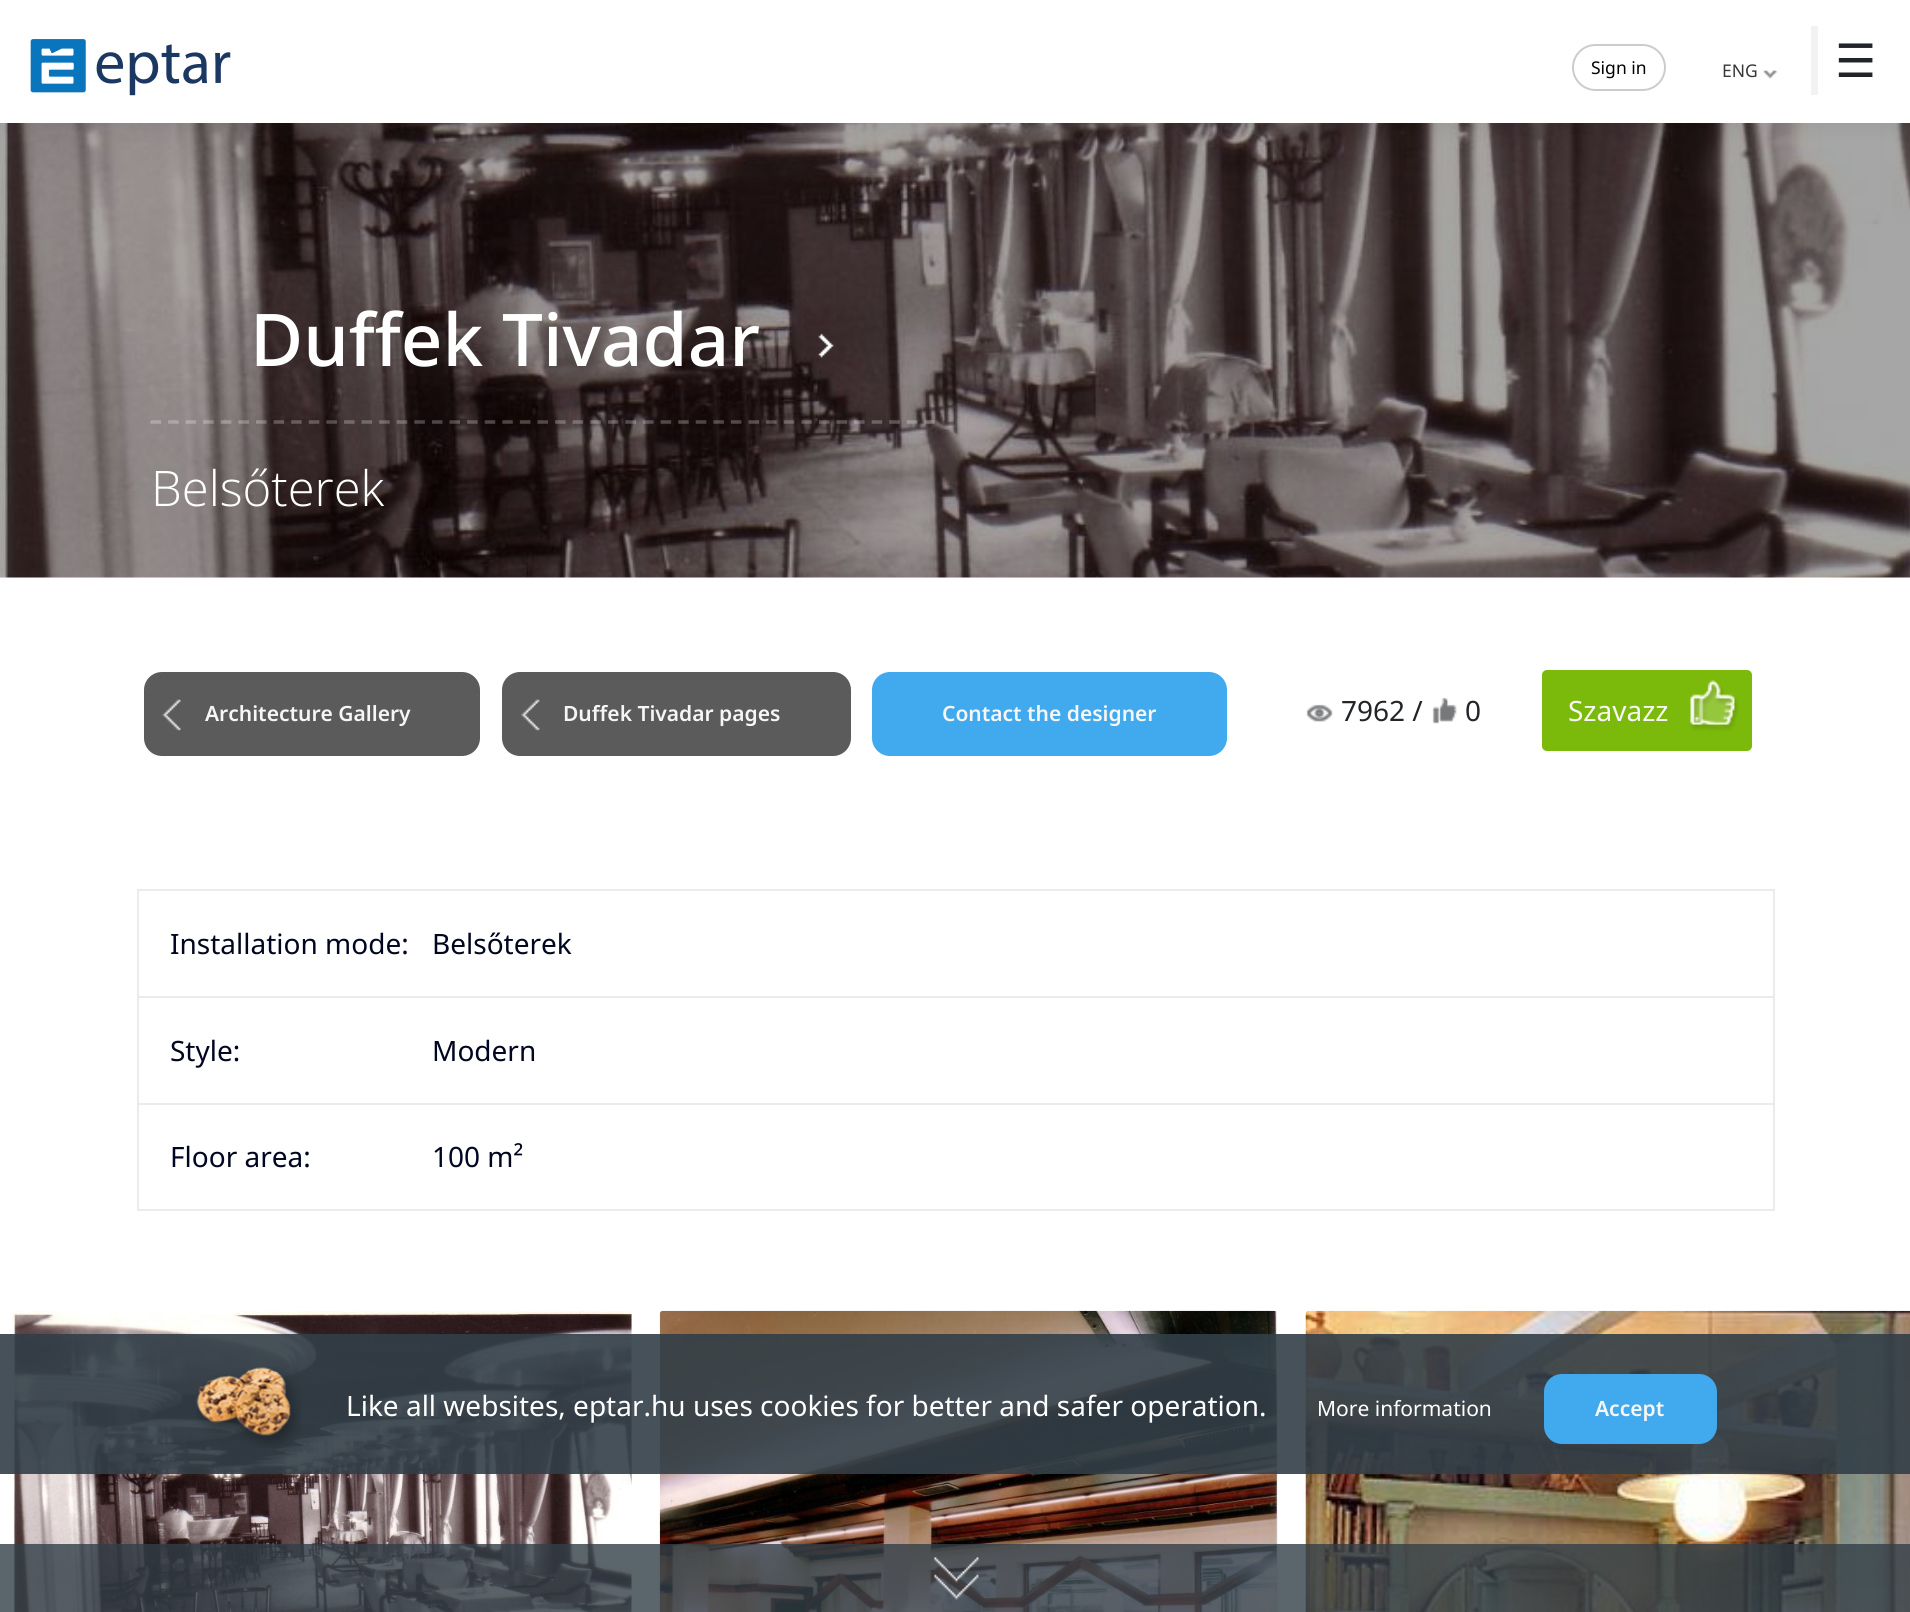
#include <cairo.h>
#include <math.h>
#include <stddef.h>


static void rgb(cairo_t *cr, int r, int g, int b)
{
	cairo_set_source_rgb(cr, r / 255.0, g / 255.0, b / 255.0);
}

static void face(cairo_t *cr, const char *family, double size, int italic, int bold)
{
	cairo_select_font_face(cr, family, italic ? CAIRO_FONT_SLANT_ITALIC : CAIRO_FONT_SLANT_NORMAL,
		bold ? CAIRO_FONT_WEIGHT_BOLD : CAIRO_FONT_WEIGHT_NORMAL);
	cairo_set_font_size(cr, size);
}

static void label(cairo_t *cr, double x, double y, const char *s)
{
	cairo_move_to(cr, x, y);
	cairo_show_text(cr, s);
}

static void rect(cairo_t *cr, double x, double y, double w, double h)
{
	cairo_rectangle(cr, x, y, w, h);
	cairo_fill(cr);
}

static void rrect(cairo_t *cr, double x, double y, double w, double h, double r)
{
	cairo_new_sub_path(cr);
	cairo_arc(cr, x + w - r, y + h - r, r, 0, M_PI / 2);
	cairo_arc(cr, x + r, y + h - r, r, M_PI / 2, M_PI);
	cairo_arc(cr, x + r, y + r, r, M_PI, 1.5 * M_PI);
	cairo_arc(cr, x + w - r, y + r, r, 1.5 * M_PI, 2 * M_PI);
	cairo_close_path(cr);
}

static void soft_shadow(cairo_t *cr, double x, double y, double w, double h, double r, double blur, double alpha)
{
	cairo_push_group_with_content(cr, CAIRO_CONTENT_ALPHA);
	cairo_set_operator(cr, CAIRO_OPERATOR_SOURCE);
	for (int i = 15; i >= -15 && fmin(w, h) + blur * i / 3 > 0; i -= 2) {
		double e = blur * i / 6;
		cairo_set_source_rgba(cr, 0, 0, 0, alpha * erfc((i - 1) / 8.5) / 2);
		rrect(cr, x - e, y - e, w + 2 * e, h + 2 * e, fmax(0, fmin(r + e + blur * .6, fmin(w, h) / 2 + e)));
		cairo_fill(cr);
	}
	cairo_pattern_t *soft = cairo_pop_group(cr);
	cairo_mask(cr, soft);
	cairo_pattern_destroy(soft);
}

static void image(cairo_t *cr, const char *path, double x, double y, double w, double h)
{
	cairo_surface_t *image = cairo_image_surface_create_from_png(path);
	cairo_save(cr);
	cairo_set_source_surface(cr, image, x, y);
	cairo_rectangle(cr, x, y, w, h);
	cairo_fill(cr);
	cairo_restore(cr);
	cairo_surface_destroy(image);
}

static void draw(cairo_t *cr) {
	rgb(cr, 255, 255, 255);
	cairo_paint(cr);
	image(cr, "image2.png", 0, 123, 1910, 455);
	rgb(cr, 0, 0, 0);
	soft_shadow(cr, -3, 0, 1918, 130, 0, 8, 0.05);
	rgb(cr, 255, 255, 255);
	rect(cr, 0, 0, 1910, 123);
	image(cr, "image0.png", 30, 39, 201, 57);
	rrect(cr, 1573, 45, 92, 45, 22.5);
	rgb(cr, 204, 204, 204);
	cairo_stroke(cr);
	face(cr, "Noto Sans", 17.5, 0, 0);
	rgb(cr, 0, 0, 0);
	label(cr, 1591, 74, "Sign in");
	rgb(cr, 55, 55, 55);
	label(cr, 1722, 77, "ENG");
	image(cr, "image1.png", 1763, 70, 15, 9);
	rgb(cr, 242, 242, 242);
	rect(cr, 1811, 26, 7, 69);
	face(cr, "DejaVu Sans", 46, 0, 0);
	rgb(cr, 33, 37, 41);
	label(cr, 1835, 77, "☰");
	face(cr, "Noto Sans Medium", 72.75, 0, 0);
	rgb(cr, 255, 255, 255);
	label(cr, 250, 366, "Duffek Tivadar");
	image(cr, "image3.png", 818, 333, 16, 25);
	cairo_new_path(cr);
	cairo_move_to(cr, 150.5, 422);
	cairo_line_to(cr, 934.5, 422);
	cairo_set_source_rgba(cr, 1, 1, 1, 0.25);
	cairo_set_line_width(cr, 3.5);
	cairo_set_dash(cr, (double[]){10.5, 7.09}, 2, 0);
	cairo_stroke(cr);
	face(cr, "Open Sans Light", 49, 0, 0);
	rgb(cr, 255, 255, 255);
	label(cr, 151, 506, "Belsőterek");
	rgb(cr, 91, 91, 91);
	rrect(cr, 144, 672, 336, 84, 18);
	cairo_fill(cr);
	image(cr, "image4.png", 162, 699, 19, 32);
	face(cr, "Noto Sans SemiBold", 21, 0, 0);
	rgb(cr, 246, 246, 246);
	label(cr, 205, 721, "Architecture Gallery");
	rgb(cr, 91, 91, 91);
	rrect(cr, 502, 672, 349, 84, 18);
	cairo_fill(cr);
	image(cr, "image5.png", 521, 699, 19, 32);
	rgb(cr, 246, 246, 246);
	label(cr, 563, 721, "Duffek Tivadar pages");
	rgb(cr, 65, 169, 238);
	rrect(cr, 872, 672, 355, 84, 18);
	cairo_fill(cr);
	rgb(cr, 246, 246, 246);
	label(cr, 942, 721, "Contact the designer");
	image(cr, "image6.png", 1306, 704, 27, 18);
	face(cr, "Noto Sans", 28, 0, 0);
	rgb(cr, 33, 37, 41);
	label(cr, 1341, 721, "7962 /");
	image(cr, "image7.png", 1432, 697, 25, 27);
	label(cr, 1465, 721, "0");
	rgb(cr, 123, 185, 11);
	rrect(cr, 1542, 670, 210, 81, 5);
	cairo_fill(cr);
	image(cr, "image8.png", 1690, 680, 49, 51);
	rgb(cr, 246, 246, 246);
	label(cr, 1568, 721, "Szavazz");
	rgb(cr, 234, 235, 235);
	rect(cr, 137, 889, 1638, 2);
	rect(cr, 137, 996, 1638, 2);
	rect(cr, 137, 1103, 1638, 2);
	rect(cr, 1773, 1103, 2, 108);
	rect(cr, 1773, 996, 2, 108);
	rect(cr, 1773, 889, 2, 109);
	rect(cr, 137, 1209, 1638, 2);
	rect(cr, 137, 1103, 2, 108);
	rect(cr, 137, 996, 2, 108);
	rect(cr, 137, 889, 2, 109);
	rgb(cr, 0, 6, 32);
	label(cr, 170, 954, "Installation mode:");
	label(cr, 432, 954, "Belsőterek");
	label(cr, 170, 1061, "Style:");
	label(cr, 432, 1061, "Modern");
	label(cr, 170, 1167, "Floor area:");
	label(cr, 432, 1167, "100 m²");
	image(cr, "image9.png", 12, 1311, 620, 301);
	image(cr, "image10.png", 659, 1310, 619, 302);
	image(cr, "image11.png", 1305, 1310, 605, 302);
	cairo_set_source_rgba(cr, 0.196, 0.247, 0.282, 0.9);
	rect(cr, 0, 1334, 1910, 140);
	image(cr, "image12.png", 196, 1367, 105, 81);
	rgb(cr, 255, 255, 255);
	label(cr, 346, 1416, "Like all websites, eptar.hu uses cookies for better and safer operation.");
	face(cr, "Noto Sans", 21, 0, 0);
	label(cr, 1317, 1416, "More information");
	rgb(cr, 65, 169, 238);
	rrect(cr, 1544, 1374, 173, 70, 18);
	cairo_fill(cr);
	face(cr, "Noto Sans SemiBold", 21, 0, 0);
	rgb(cr, 246, 246, 246);
	label(cr, 1595, 1416, "Accept");
	cairo_set_source_rgba(cr, 0.196, 0.247, 0.282, 0.8);
	rect(cr, 0, 1544, 1910, 68);
	image(cr, "image13.png", 934, 1557, 45, 43);
}

int main(void) {
	cairo_surface_t *surface = cairo_image_surface_create(CAIRO_FORMAT_RGB24, 1910, 1612);
	cairo_t *cr = cairo_create(surface);
	cairo_font_options_t *options = cairo_font_options_create();
	cairo_font_options_set_hint_metrics(options, CAIRO_HINT_METRICS_OFF);
	cairo_font_options_set_hint_style(options, CAIRO_HINT_STYLE_NONE);
	cairo_set_font_options(cr, options);
	cairo_set_miter_limit(cr, 4);
	draw(cr);
	cairo_surface_write_to_png(surface, "render.png");
	cairo_font_options_destroy(options);
	cairo_destroy(cr);
	cairo_surface_destroy(surface);
	return 0;
}
